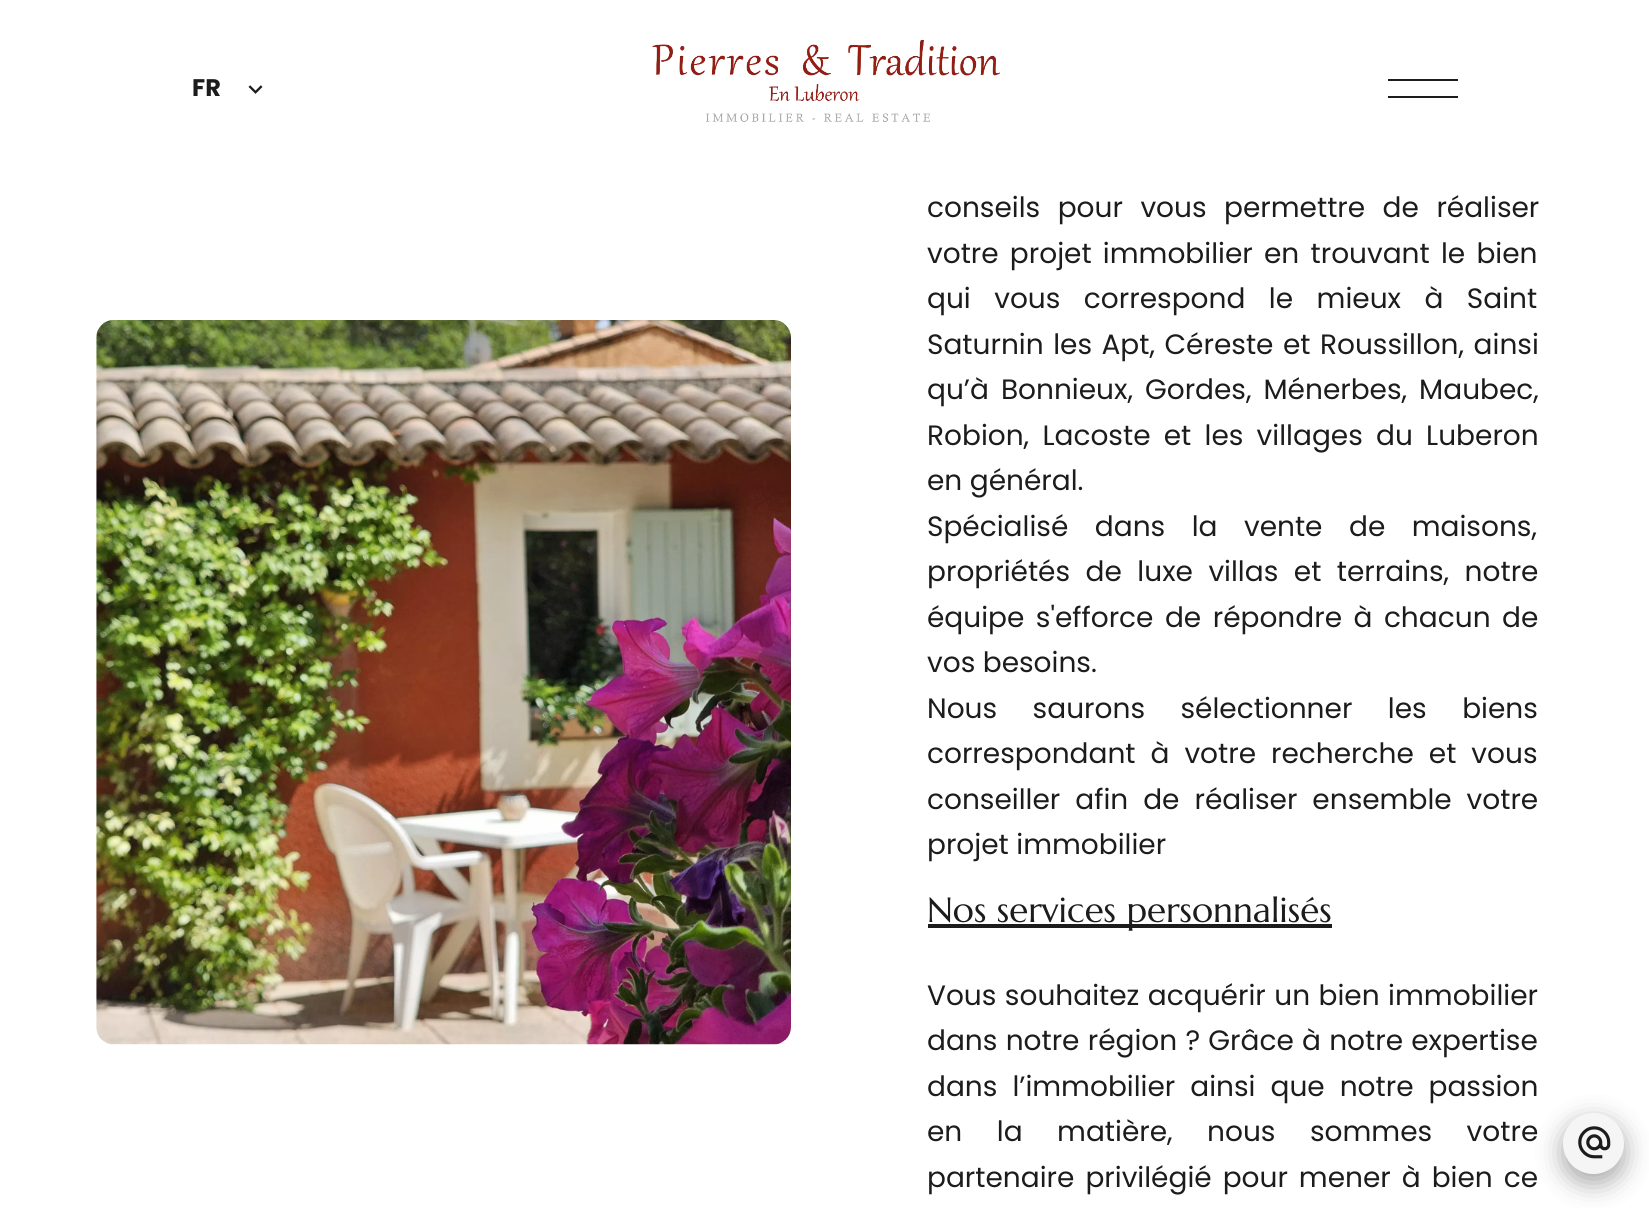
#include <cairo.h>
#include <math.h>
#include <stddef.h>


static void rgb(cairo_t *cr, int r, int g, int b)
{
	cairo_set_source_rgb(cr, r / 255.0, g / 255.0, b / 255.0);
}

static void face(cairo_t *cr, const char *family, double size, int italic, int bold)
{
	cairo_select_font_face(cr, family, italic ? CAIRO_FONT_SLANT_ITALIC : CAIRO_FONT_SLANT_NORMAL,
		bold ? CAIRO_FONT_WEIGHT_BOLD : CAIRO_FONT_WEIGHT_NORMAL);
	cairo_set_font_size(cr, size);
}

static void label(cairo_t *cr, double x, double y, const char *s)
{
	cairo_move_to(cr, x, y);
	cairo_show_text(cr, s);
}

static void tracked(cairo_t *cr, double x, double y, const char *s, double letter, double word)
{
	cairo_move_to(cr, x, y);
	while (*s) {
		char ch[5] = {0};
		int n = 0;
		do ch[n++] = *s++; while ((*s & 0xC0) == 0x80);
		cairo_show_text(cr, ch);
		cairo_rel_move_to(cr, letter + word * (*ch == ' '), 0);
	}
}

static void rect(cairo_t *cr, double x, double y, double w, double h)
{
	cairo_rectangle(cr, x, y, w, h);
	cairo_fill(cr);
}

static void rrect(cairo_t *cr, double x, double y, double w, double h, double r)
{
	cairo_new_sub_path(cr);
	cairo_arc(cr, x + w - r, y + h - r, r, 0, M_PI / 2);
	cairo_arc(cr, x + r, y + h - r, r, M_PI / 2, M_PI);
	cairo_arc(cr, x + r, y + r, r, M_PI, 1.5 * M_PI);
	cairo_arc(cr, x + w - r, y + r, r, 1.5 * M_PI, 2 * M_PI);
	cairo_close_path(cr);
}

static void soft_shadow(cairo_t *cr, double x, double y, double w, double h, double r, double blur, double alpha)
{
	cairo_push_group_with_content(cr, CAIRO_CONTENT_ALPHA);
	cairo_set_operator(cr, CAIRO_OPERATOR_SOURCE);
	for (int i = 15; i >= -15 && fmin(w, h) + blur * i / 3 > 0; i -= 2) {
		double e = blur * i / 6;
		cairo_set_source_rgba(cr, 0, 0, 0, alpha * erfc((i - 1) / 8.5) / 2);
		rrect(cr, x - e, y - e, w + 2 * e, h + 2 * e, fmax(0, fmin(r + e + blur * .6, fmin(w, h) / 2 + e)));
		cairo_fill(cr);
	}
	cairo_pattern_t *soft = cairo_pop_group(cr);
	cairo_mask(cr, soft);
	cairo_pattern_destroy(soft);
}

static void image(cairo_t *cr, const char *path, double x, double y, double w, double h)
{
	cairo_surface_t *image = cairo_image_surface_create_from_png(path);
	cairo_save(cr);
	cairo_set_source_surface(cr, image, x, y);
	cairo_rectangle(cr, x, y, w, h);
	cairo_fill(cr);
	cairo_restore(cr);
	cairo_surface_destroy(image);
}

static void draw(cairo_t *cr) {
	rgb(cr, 255, 255, 255);
	cairo_paint(cr);
	face(cr, "Poppins", 24, 0, 1);
	rgb(cr, 28, 28, 28);
	label(cr, 192, 96, "FR");
	image(cr, "image0.png", 248, 85, 15, 9);
	image(cr, "image1.png", 652, 40, 349, 82);
	rect(cr, 1388, 79, 70, 2);
	rect(cr, 1388, 96, 70, 2);
	image(cr, "image2.png", 96, 320, 695, 725);
	face(cr, "Poppins", 28, 0, 0);
	tracked(cr, 927, 217, "conseils pour vous permettre de réaliser", 0, 10);
	tracked(cr, 927, 263, "votre projet immobilier en trouvant le bien", 0, 3.75);
	tracked(cr, 927, 308, "qui vous correspond le mieux à Saint", 0, 16);
	tracked(cr, 927, 354, "Saturnin les Apt, Céreste et Roussillon, ainsi", 0, 2);
	tracked(cr, 927, 399, "qu’à Bonnieux, Gordes, Ménerbes, Maubec,", 0, 4.5);
	tracked(cr, 927, 445, "Robion, Lacoste et les villages du Luberon", 0, 5.75);
	label(cr, 927, 490, "en général.");
	tracked(cr, 927, 536, "Spécialisé dans la vente de maisons,", 0, 19);
	tracked(cr, 927, 581, "propriétés de luxe villas et terrains, notre", 0, 8);
	tracked(cr, 927, 627, "équipe s'efforce de répondre à chacun de", 0, 4);
	label(cr, 927, 672, "vos besoins.");
	tracked(cr, 927, 718, "Nous saurons sélectionner les biens", 0, 28);
	tracked(cr, 927, 763, "correspondant à votre recherche et vous", 0, 7.5);
	tracked(cr, 927, 809, "conseiller afin de réaliser ensemble votre", 0, 7.5);
	label(cr, 927, 854, "projet immobilier");
	rect(cr, 928, 924, 404, 4);
	face(cr, "Marcellus", 35, 0, 0);
	label(cr, 927, 922, "Nos services personnalisés");
	face(cr, "Poppins", 28, 0, 0);
	tracked(cr, 927, 1005, "Vous souhaitez acquérir un bien immobilier", 0, 1);
	tracked(cr, 927, 1050, "dans notre région ? Grâce à notre expertise", 0, 0.75);
	tracked(cr, 927, 1096, "dans l’immobilier ainsi que notre passion", 0, 7.5);
	tracked(cr, 927, 1141, "en la matière, nous sommes votre", 0, 27);
	tracked(cr, 927, 1187, "partenaire privilégié pour mener à bien ce", 0, 3.5);
	rgb(cr, 0, 0, 0);
	soft_shadow(cr, 1563, 1122, 61, 61, 30.5, 13, 0.35);
	rgb(cr, 245, 245, 245);
	cairo_arc(cr, 1593.5, 1143.5, 30.5, 0, 2 * M_PI);
	cairo_fill(cr);
	image(cr, "image3.png", 1578, 1126, 33, 33);
}

int main(void) {
	cairo_surface_t *surface = cairo_image_surface_create(CAIRO_FORMAT_RGB24, 1649, 1208);
	cairo_t *cr = cairo_create(surface);
	cairo_font_options_t *options = cairo_font_options_create();
	cairo_font_options_set_hint_metrics(options, CAIRO_HINT_METRICS_OFF);
	cairo_font_options_set_hint_style(options, CAIRO_HINT_STYLE_NONE);
	cairo_set_font_options(cr, options);
	cairo_set_miter_limit(cr, 4);
	draw(cr);
	cairo_surface_write_to_png(surface, "render.png");
	cairo_font_options_destroy(options);
	cairo_destroy(cr);
	cairo_surface_destroy(surface);
	return 0;
}
